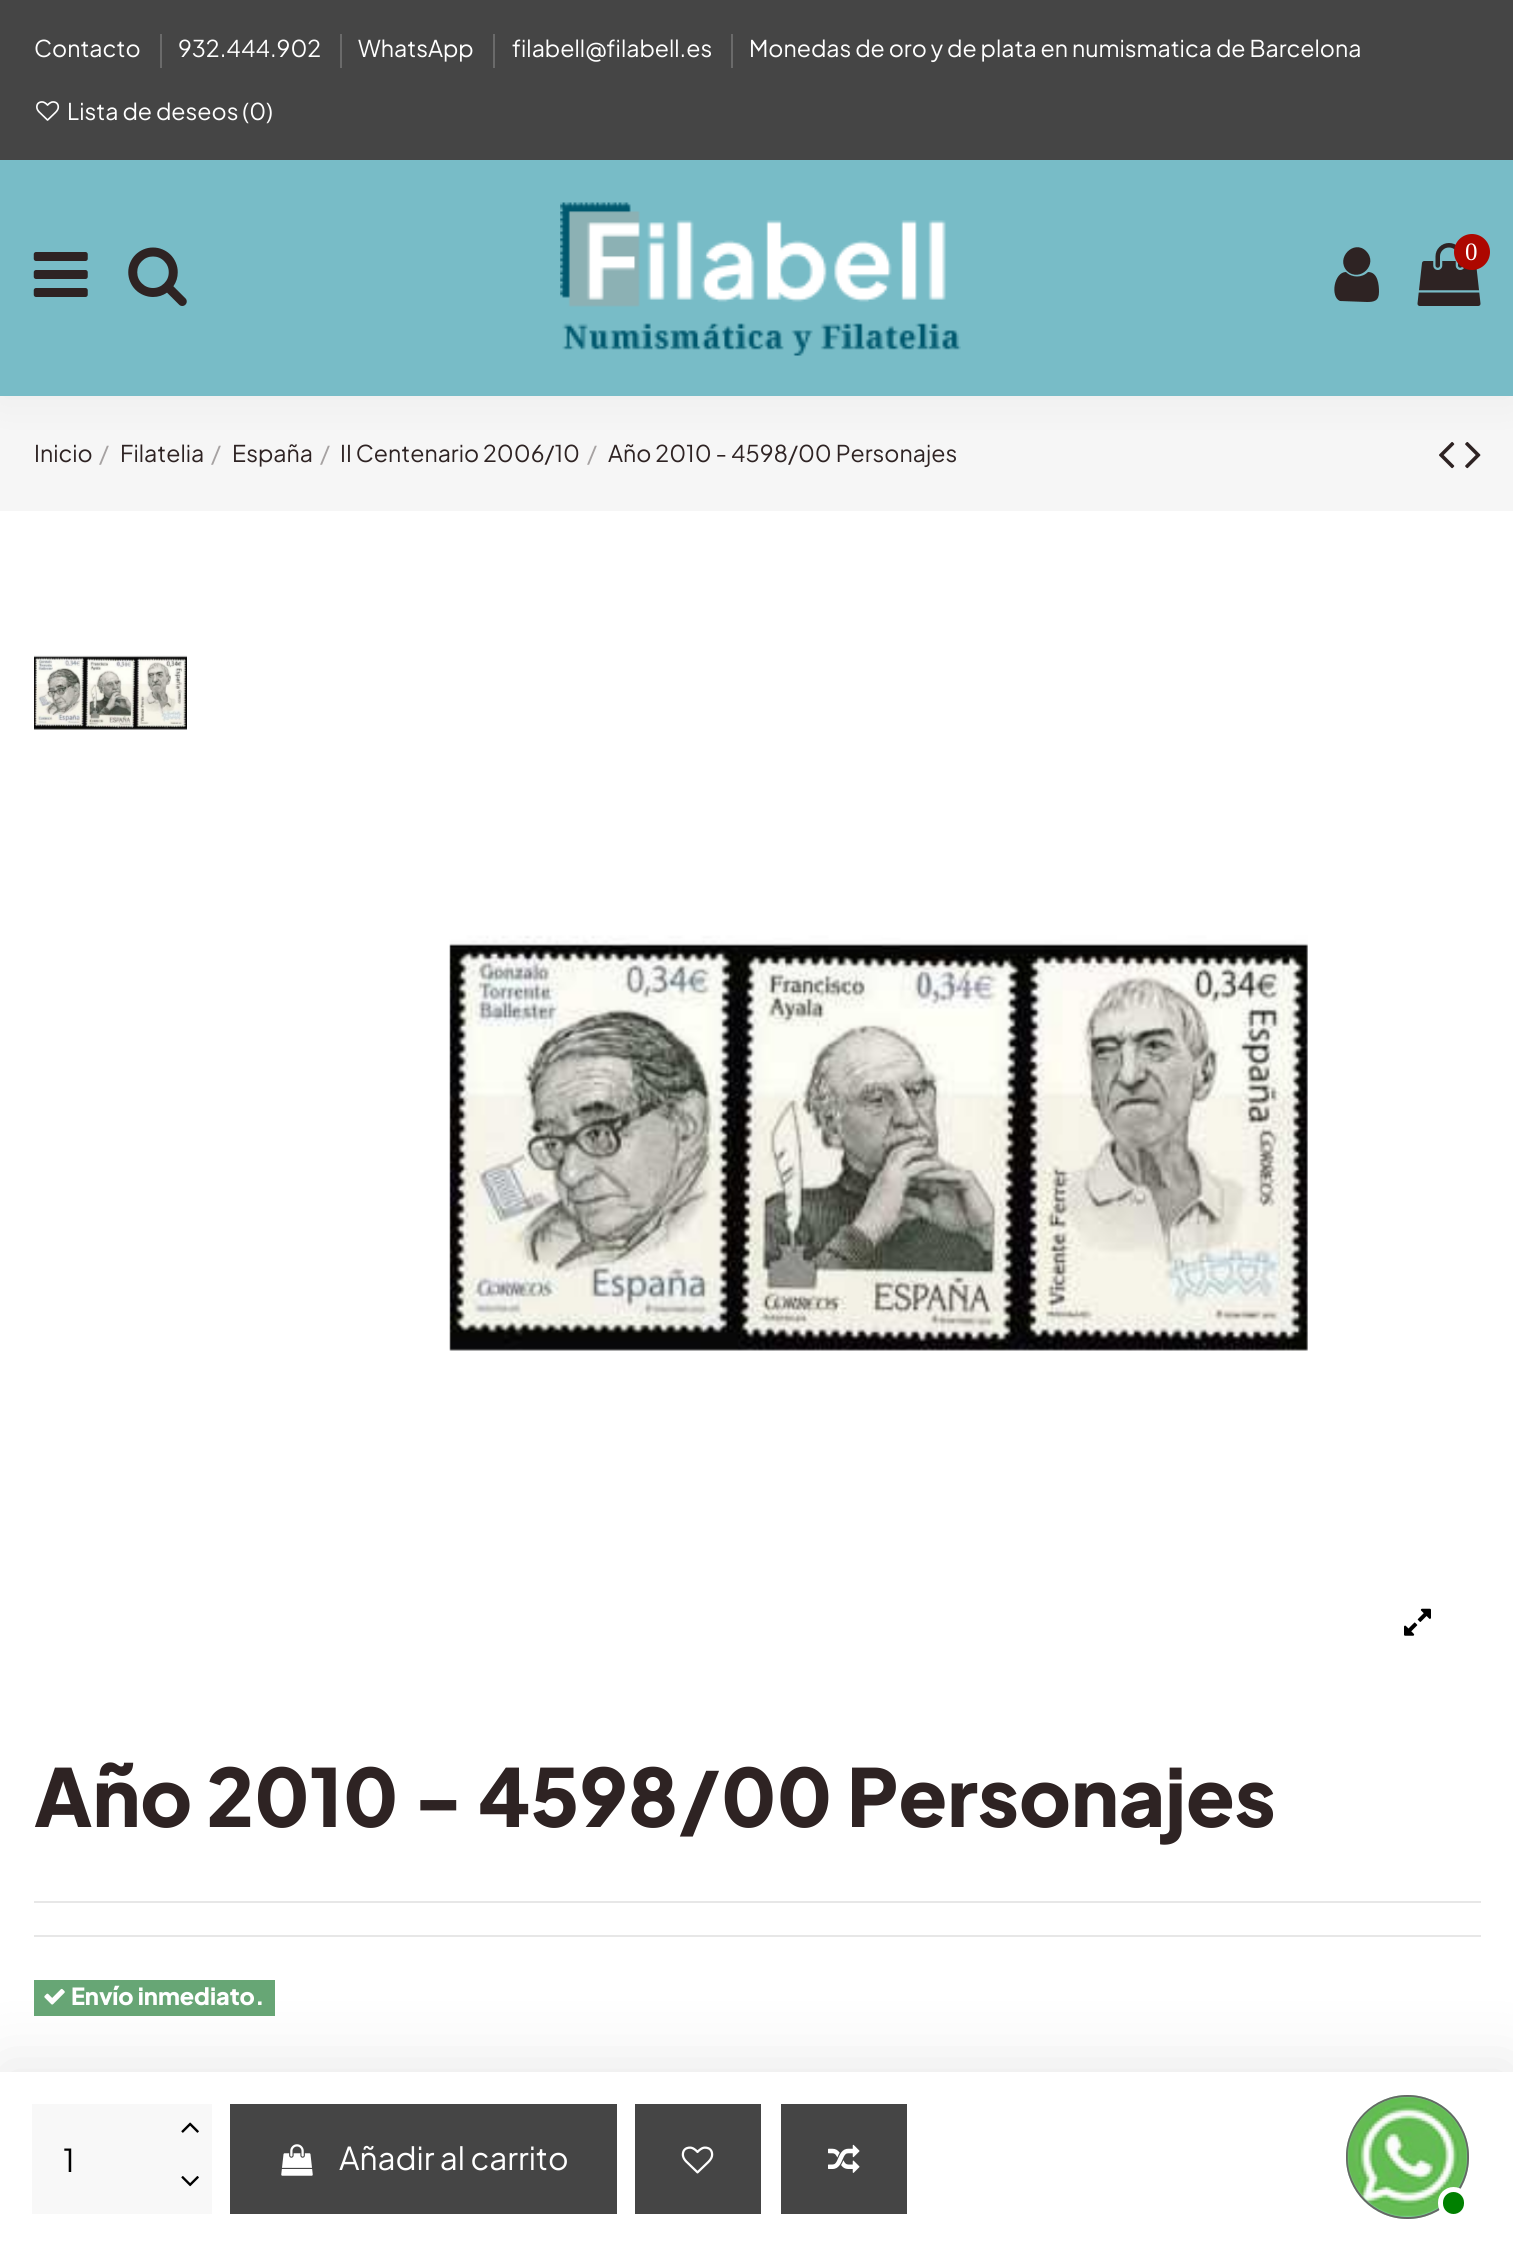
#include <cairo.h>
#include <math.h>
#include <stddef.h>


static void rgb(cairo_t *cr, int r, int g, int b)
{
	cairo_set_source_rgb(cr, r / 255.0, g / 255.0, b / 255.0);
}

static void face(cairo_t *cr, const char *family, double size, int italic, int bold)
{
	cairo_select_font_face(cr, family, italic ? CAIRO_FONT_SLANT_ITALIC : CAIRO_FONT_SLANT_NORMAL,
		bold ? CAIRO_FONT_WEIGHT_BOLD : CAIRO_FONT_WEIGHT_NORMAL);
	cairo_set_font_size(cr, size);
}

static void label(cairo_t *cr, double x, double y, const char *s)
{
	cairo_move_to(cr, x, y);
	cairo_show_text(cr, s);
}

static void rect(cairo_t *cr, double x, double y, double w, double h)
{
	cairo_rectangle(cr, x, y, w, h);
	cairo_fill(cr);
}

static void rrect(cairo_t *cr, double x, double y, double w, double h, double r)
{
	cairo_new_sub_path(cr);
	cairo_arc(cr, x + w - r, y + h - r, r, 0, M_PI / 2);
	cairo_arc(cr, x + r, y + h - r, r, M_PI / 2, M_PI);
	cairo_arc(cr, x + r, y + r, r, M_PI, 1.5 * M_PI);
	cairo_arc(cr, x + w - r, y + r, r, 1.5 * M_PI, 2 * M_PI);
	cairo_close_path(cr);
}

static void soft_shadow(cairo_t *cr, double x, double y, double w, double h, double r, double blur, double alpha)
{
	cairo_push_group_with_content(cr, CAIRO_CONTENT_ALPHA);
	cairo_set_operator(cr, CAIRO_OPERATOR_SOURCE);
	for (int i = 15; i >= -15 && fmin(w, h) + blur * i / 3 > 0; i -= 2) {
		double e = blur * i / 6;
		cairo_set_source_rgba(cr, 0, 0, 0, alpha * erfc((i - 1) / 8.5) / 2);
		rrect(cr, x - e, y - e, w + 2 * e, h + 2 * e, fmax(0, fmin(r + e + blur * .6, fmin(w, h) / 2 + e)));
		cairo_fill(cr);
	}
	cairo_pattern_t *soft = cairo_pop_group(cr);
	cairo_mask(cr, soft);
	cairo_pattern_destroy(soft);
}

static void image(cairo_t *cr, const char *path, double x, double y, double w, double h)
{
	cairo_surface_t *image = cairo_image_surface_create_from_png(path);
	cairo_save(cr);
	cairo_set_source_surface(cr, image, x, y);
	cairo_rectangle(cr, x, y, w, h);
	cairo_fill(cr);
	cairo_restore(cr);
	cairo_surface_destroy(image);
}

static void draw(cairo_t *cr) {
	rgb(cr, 255, 255, 255);
	cairo_paint(cr);
	rgb(cr, 246, 246, 246);
	rect(cr, 0, 396, 1513, 115);
	image(cr, "image5.png", 1439, 442, 16, 27);
	image(cr, "image6.png", 1465, 442, 16, 27);
	rgb(cr, 0, 0, 0);
	soft_shadow(cr, 0, 0, 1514, 396, 0, 22.5, 0.05);
	rgb(cr, 120, 188, 199);
	rect(cr, 0, 160, 1513, 236);
	rgb(cr, 69, 69, 69);
	rect(cr, 0, 0, 1513, 160);
	face(cr, "Plus Jakarta Sans", 23.1, 0, 0);
	rgb(cr, 255, 255, 255);
	label(cr, 34, 57, "Contacto");
	rgb(cr, 106, 106, 106);
	rect(cr, 160, 34, 2, 34);
	rgb(cr, 255, 255, 255);
	label(cr, 178, 57, "932.444.902");
	rgb(cr, 106, 106, 106);
	rect(cr, 340, 34, 2, 34);
	rgb(cr, 255, 255, 255);
	label(cr, 358, 57, "WhatsApp");
	rgb(cr, 106, 106, 106);
	rect(cr, 493, 34, 2, 34);
	rgb(cr, 255, 255, 255);
	label(cr, 512, 57, "filabell@filabell.es");
	rgb(cr, 106, 106, 106);
	rect(cr, 731, 34, 2, 34);
	rgb(cr, 255, 255, 255);
	label(cr, 749, 57, "Monedas de oro y de plata en numismatica de Barcelona");
	image(cr, "image0.png", 36, 101, 24, 20);
	label(cr, 67, 120, "Lista de deseos (0)");
	image(cr, "image1.png", 33, 252, 55, 45);
	image(cr, "image2.png", 128, 247, 59, 59);
	image(cr, "image3.png", 560, 202, 401, 154);
	rgb(cr, 46, 35, 35);
	cairo_new_path(cr);
	cairo_move_to(cr, 1379, 292);
	cairo_curve_to(cr, 1379, 301, 1374, 302, 1367, 302);
	cairo_line_to(cr, 1340, 301);
	cairo_curve_to(cr, 1330, 297, 1334, 272, 1346, 272);
	cairo_curve_to(cr, 1352, 278, 1362, 278, 1368, 272);
	cairo_curve_to(cr, 1378, 272, 1379, 285, 1379, 292);
	cairo_close_path(cr);
	cairo_move_to(cr, 1366, 251);
	cairo_curve_to(cr, 1379, 264, 1360, 283, 1347, 271);
	cairo_curve_to(cr, 1335, 258, 1354, 239, 1366, 251);
	cairo_close_path(cr);
	cairo_fill(cr);
	image(cr, "image4.png", 1417, 243, 64, 63);
	rgb(cr, 173, 7, 0);
	cairo_arc(cr, 1472, 252, 18, 0, 2 * M_PI);
	cairo_fill(cr);
	face(cr, "Liberation Serif", 25, 0, 0);
	rgb(cr, 255, 255, 255);
	label(cr, 1465, 260, "0");
	face(cr, "Plus Jakarta Sans", 23.1, 0, 0);
	rgb(cr, 46, 35, 35);
	label(cr, 34, 462, "Inicio");
	rgb(cr, 166, 162, 162);
	label(cr, 99, 462, "/");
	rgb(cr, 46, 35, 35);
	label(cr, 120, 462, "Filatelia");
	rgb(cr, 166, 162, 162);
	label(cr, 211, 462, "/");
	rgb(cr, 46, 35, 35);
	label(cr, 232, 462, "España");
	rgb(cr, 166, 162, 162);
	label(cr, 320, 462, "/");
	rgb(cr, 46, 35, 35);
	label(cr, 340, 462, "II Centenario 2006/10");
	rgb(cr, 166, 162, 162);
	label(cr, 587, 462, "/");
	rgb(cr, 46, 35, 35);
	label(cr, 608, 462, "Año 2010 - 4598/00 Personajes");
	image(cr, "image7.png", 34, 655, 153, 75);
	image(cr, "image8.png", 449, 935, 859, 416);
	image(cr, "image9.png", 1404, 1608, 27, 28);
	rgb(cr, 231, 231, 231);
	rect(cr, 34, 1901, 1447, 2);
	face(cr, "Plus Jakarta Sans ExtraBold", 79.75, 0, 0);
	rgb(cr, 46, 35, 35);
	label(cr, 34, 1827, "Año 2010 - 4598/00 Personajes");
	rgb(cr, 231, 231, 231);
	rect(cr, 34, 1935, 1447, 2);
	rgb(cr, 103, 166, 117);
	rect(cr, 34, 1980, 241, 36);
	image(cr, "image10.png", 44, 1988, 21, 17);
	face(cr, "Plus Jakarta Sans ExtraBold", 23.5, 0, 0);
	rgb(cr, 255, 255, 255);
	label(cr, 71, 2005, "Envío inmediato.");
	rgb(cr, 0, 0, 0);
	soft_shadow(cr, 0, 2063, 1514, 192, 0, 34, 0.09);
	rgb(cr, 255, 255, 255);
	rect(cr, 0, 2072, 1513, 190);
	rgb(cr, 248, 248, 248);
	rect(cr, 32, 2104, 135, 110);
	face(cr, "Plus Jakarta Sans", 31.5, 0, 0);
	rgb(cr, 0, 0, 0);
	label(cr, 63, 2172, "1");
	rgb(cr, 248, 248, 248);
	rect(cr, 167, 2104, 45, 110);
	image(cr, "image11.png", 181, 2122, 18, 11);
	image(cr, "image12.png", 181, 2176, 18, 11);
	rgb(cr, 69, 69, 69);
	rect(cr, 230, 2104, 387, 110);
	image(cr, "image13.png", 281, 2144, 32, 32);
	rgb(cr, 255, 255, 255);
	label(cr, 339, 2170, "Añadir al carrito");
	rgb(cr, 69, 69, 69);
	rect(cr, 635, 2104, 126, 110);
	image(cr, "image14.png", 681, 2146, 33, 28);
	rect(cr, 781, 2104, 126, 110);
	image(cr, "image15.png", 828, 2144, 32, 29);
	rgb(cr, 198, 237, 208);
	rrect(cr, 1346, 2095, 123, 124, 61.5);
	cairo_fill(cr);
	cairo_set_source_rgba(cr, 0.102, 0.718, 0.267, 0.25);
	rrect(cr, 1346, 2095, 123, 124, 61.5);
	cairo_fill(cr);
	rrect(cr, 1347, 2096, 121, 122, 60.5);
	cairo_fill_preserve(cr);
	rgb(cr, 102, 102, 102);
	cairo_stroke(cr);
	image(cr, "image16.png", 1347, 2096, 121, 121);
	rgb(cr, 0, 128, 0);
	rrect(cr, 1440.5, 2189.5, 26, 27, 13);
	cairo_fill_preserve(cr);
	rgb(cr, 255, 255, 255);
	cairo_set_line_width(cr, 5);
	cairo_stroke(cr);
}

int main(void) {
	cairo_surface_t *surface = cairo_image_surface_create(CAIRO_FORMAT_RGB24, 1513, 2262);
	cairo_t *cr = cairo_create(surface);
	cairo_font_options_t *options = cairo_font_options_create();
	cairo_font_options_set_hint_metrics(options, CAIRO_HINT_METRICS_OFF);
	cairo_font_options_set_hint_style(options, CAIRO_HINT_STYLE_NONE);
	cairo_set_font_options(cr, options);
	cairo_set_miter_limit(cr, 4);
	draw(cr);
	cairo_surface_write_to_png(surface, "render.png");
	cairo_font_options_destroy(options);
	cairo_destroy(cr);
	cairo_surface_destroy(surface);
	return 0;
}
